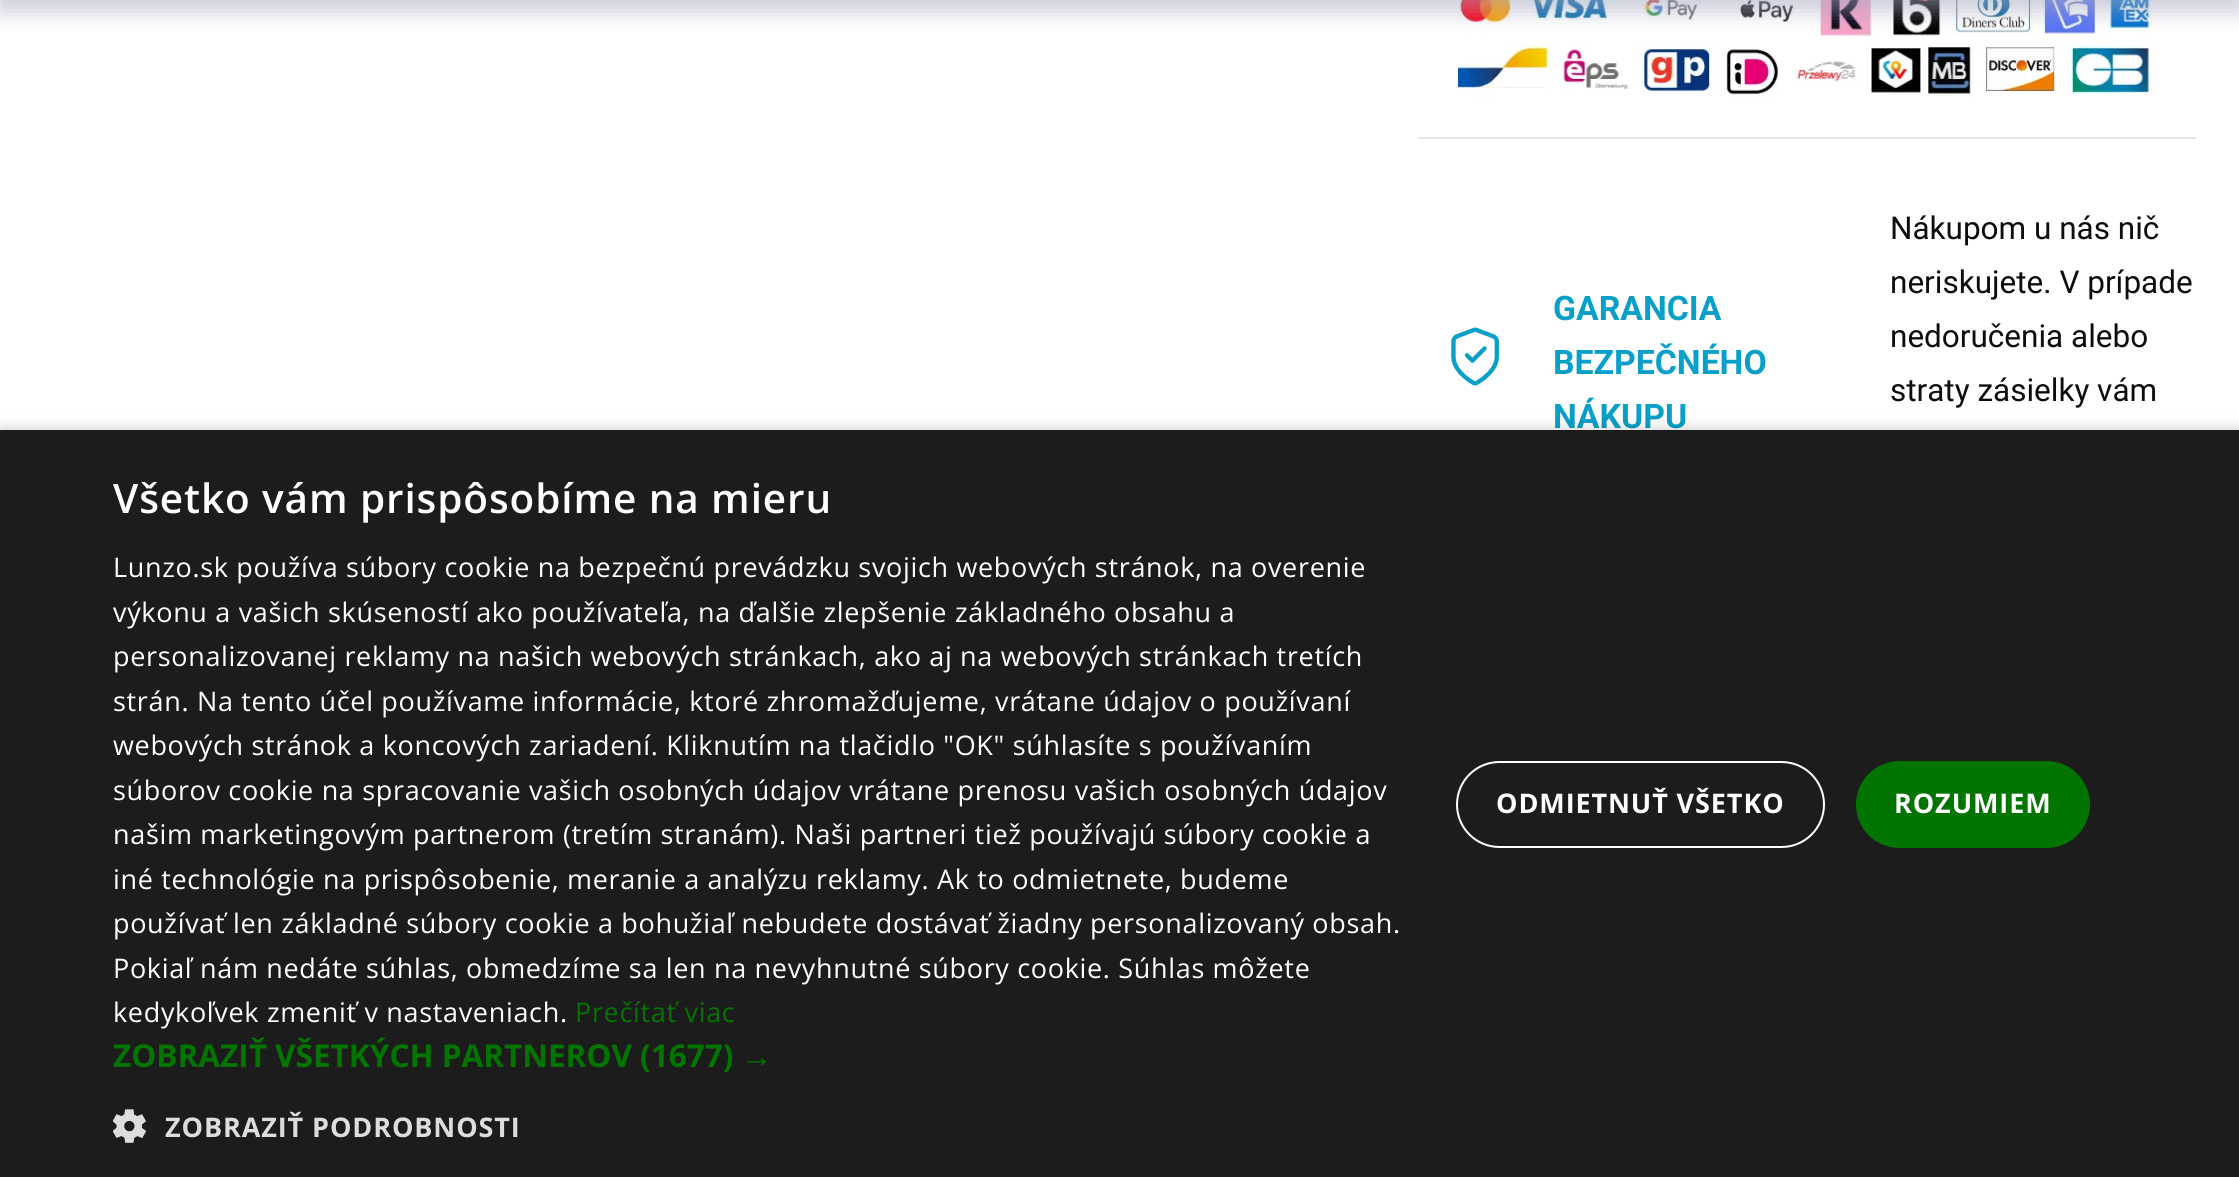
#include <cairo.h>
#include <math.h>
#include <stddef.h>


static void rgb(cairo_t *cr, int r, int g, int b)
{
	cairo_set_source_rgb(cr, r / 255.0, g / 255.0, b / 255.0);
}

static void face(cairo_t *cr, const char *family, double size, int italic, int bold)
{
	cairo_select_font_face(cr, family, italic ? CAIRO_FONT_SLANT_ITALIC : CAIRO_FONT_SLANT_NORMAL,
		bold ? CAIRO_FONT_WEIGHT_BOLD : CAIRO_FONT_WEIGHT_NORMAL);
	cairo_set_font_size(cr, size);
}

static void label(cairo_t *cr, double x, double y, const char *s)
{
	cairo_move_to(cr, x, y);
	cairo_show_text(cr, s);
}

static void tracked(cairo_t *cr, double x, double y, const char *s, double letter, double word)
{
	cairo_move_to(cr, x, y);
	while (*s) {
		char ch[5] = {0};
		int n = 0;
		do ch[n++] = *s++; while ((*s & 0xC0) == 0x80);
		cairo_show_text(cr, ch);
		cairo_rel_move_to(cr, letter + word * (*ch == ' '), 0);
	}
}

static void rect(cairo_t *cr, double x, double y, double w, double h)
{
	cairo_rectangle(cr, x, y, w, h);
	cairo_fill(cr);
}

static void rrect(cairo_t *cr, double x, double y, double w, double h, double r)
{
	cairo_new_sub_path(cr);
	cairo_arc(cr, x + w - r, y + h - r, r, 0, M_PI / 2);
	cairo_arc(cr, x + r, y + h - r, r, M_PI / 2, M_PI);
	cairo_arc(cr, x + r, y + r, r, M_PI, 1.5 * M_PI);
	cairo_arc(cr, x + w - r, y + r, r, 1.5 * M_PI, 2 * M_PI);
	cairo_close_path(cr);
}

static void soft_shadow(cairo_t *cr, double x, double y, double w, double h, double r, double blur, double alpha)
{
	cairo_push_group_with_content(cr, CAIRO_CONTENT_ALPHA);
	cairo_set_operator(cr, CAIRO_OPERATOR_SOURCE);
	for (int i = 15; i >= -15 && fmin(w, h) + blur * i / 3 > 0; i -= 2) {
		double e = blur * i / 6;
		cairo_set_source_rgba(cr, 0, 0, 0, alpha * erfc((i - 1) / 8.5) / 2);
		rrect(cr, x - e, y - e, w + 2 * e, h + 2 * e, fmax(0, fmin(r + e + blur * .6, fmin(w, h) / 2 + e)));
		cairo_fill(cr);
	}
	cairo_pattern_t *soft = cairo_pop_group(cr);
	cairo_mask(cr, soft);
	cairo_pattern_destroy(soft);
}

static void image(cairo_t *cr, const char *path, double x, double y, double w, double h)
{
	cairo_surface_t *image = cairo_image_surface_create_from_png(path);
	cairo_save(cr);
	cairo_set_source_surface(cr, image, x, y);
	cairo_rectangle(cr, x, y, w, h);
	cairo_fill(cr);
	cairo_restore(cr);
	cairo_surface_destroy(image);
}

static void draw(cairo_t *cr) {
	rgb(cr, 255, 255, 255);
	cairo_paint(cr);
	image(cr, "image0.png", 1458, 0, 695, 97);
	rgb(cr, 164, 167, 193);
	soft_shadow(cr, 0, -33, 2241, 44, 0, 11, 0.34);
	soft_shadow(cr, 0, -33, 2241, 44, 0, 11, 0.34);
	rgb(cr, 228, 228, 228);
	rect(cr, 1418, 137, 778, 2);
	image(cr, "image1.png", 1451, 327, 48, 59);
	face(cr, "Roboto", 33.75, 0, 1);
	rgb(cr, 8, 160, 200);
	label(cr, 1553, 320, "GARANCIA");
	label(cr, 1553, 374, "BEZPEČNÉHO");
	label(cr, 1553, 428, "NÁKUPU");
	face(cr, "Roboto", 31.5, 0, 0);
	rgb(cr, 13, 13, 13);
	label(cr, 1890, 239, "Nákupom u nás nič");
	label(cr, 1890, 293, "neriskujete. V prípade");
	label(cr, 1890, 347, "nedoručenia alebo");
	label(cr, 1890, 401, "straty zásielky vám");
	rgb(cr, 0, 0, 0);
	soft_shadow(cr, 2, 434, 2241, 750, 0, 9, 0.35);
	rgb(cr, 28, 28, 28);
	rect(cr, 0, 430, 2239, 747);
	face(cr, "Open Sans SemiBold", 40.5, 0, 0);
	rgb(cr, 255, 255, 255);
	tracked(cr, 113, 513, "Všetko vám prispôsobíme na mieru", 0.9, 0);
	face(cr, "Open Sans", 27, 0, 0);
	tracked(cr, 113, 577, "Lunzo.sk používa súbory cookie na bezpečnú prevádzku svojich webových stránok, na overenie", 0.67, 0);
	tracked(cr, 113, 622, "výkonu a vašich skúseností ako používateľa, na ďalšie zlepšenie základného obsahu a", 0.67, 0);
	tracked(cr, 113, 666, "personalizovanej reklamy na našich webových stránkach, ako aj na webových stránkach tretích", 0.67, 0);
	tracked(cr, 113, 711, "strán. Na tento účel používame informácie, ktoré zhromažďujeme, vrátane údajov o používaní", 0.67, 0);
	tracked(cr, 113, 755, "webových stránok a koncových zariadení. Kliknutím na tlačidlo \"OK\" súhlasíte s používaním", 0.67, 0);
	tracked(cr, 113, 800, "súborov cookie na spracovanie vašich osobných údajov vrátane prenosu vašich osobných údajov", 0.67, 0);
	tracked(cr, 113, 844, "našim marketingovým partnerom (tretím stranám). Naši partneri tiež používajú súbory cookie a", 0.67, 0);
	tracked(cr, 113, 889, "iné technológie na prispôsobenie, meranie a analýzu reklamy. Ak to odmietnete, budeme", 0.67, 0);
	tracked(cr, 113, 933, "používať len základné súbory cookie a bohužiaľ nebudete dostávať žiadny personalizovaný obsah.", 0.67, 0);
	tracked(cr, 113, 978, "Pokiaľ nám nedáte súhlas, obmedzíme sa len na nevyhnutné súbory cookie. Súhlas môžete", 0.67, 0);
	tracked(cr, 113, 1022, "kedykoľvek zmeniť v nastaveniach.", 0.67, 0);
	rgb(cr, 2, 117, 0);
	tracked(cr, 575, 1022, "Prečítať viac", 0.67, 0);
	face(cr, "Open Sans", 31.5, 0, 1);
	label(cr, 113, 1067, "ZOBRAZIŤ VŠETKÝCH PARTNEROV (1677)");
	face(cr, "Liberation Sans", 31.5, 0, 1);
	label(cr, 741, 1067, "→");
	image(cr, "image2.png", 113, 1109, 33, 34);
	face(cr, "Open Sans", 27, 0, 1);
	rgb(cr, 221, 221, 221);
	tracked(cr, 165, 1137, "ZOBRAZIŤ PODROBNOSTI", 0.9, 0);
	rrect(cr, 1457, 762, 367, 85, 42.5);
	rgb(cr, 255, 255, 255);
	cairo_stroke(cr);
	tracked(cr, 1496, 813, "ODMIETNUŤ VŠETKO", 0.9, 0);
	rgb(cr, 2, 117, 0);
	rrect(cr, 1856, 761, 234, 87, 43.5);
	cairo_fill(cr);
	rgb(cr, 255, 255, 255);
	tracked(cr, 1894, 813, "ROZUMIEM", 0.9, 0);
}

int main(void) {
	cairo_surface_t *surface = cairo_image_surface_create(CAIRO_FORMAT_RGB24, 2239, 1177);
	cairo_t *cr = cairo_create(surface);
	cairo_font_options_t *options = cairo_font_options_create();
	cairo_font_options_set_hint_metrics(options, CAIRO_HINT_METRICS_OFF);
	cairo_font_options_set_hint_style(options, CAIRO_HINT_STYLE_NONE);
	cairo_set_font_options(cr, options);
	cairo_set_miter_limit(cr, 4);
	draw(cr);
	cairo_surface_write_to_png(surface, "render.png");
	cairo_font_options_destroy(options);
	cairo_destroy(cr);
	cairo_surface_destroy(surface);
	return 0;
}
